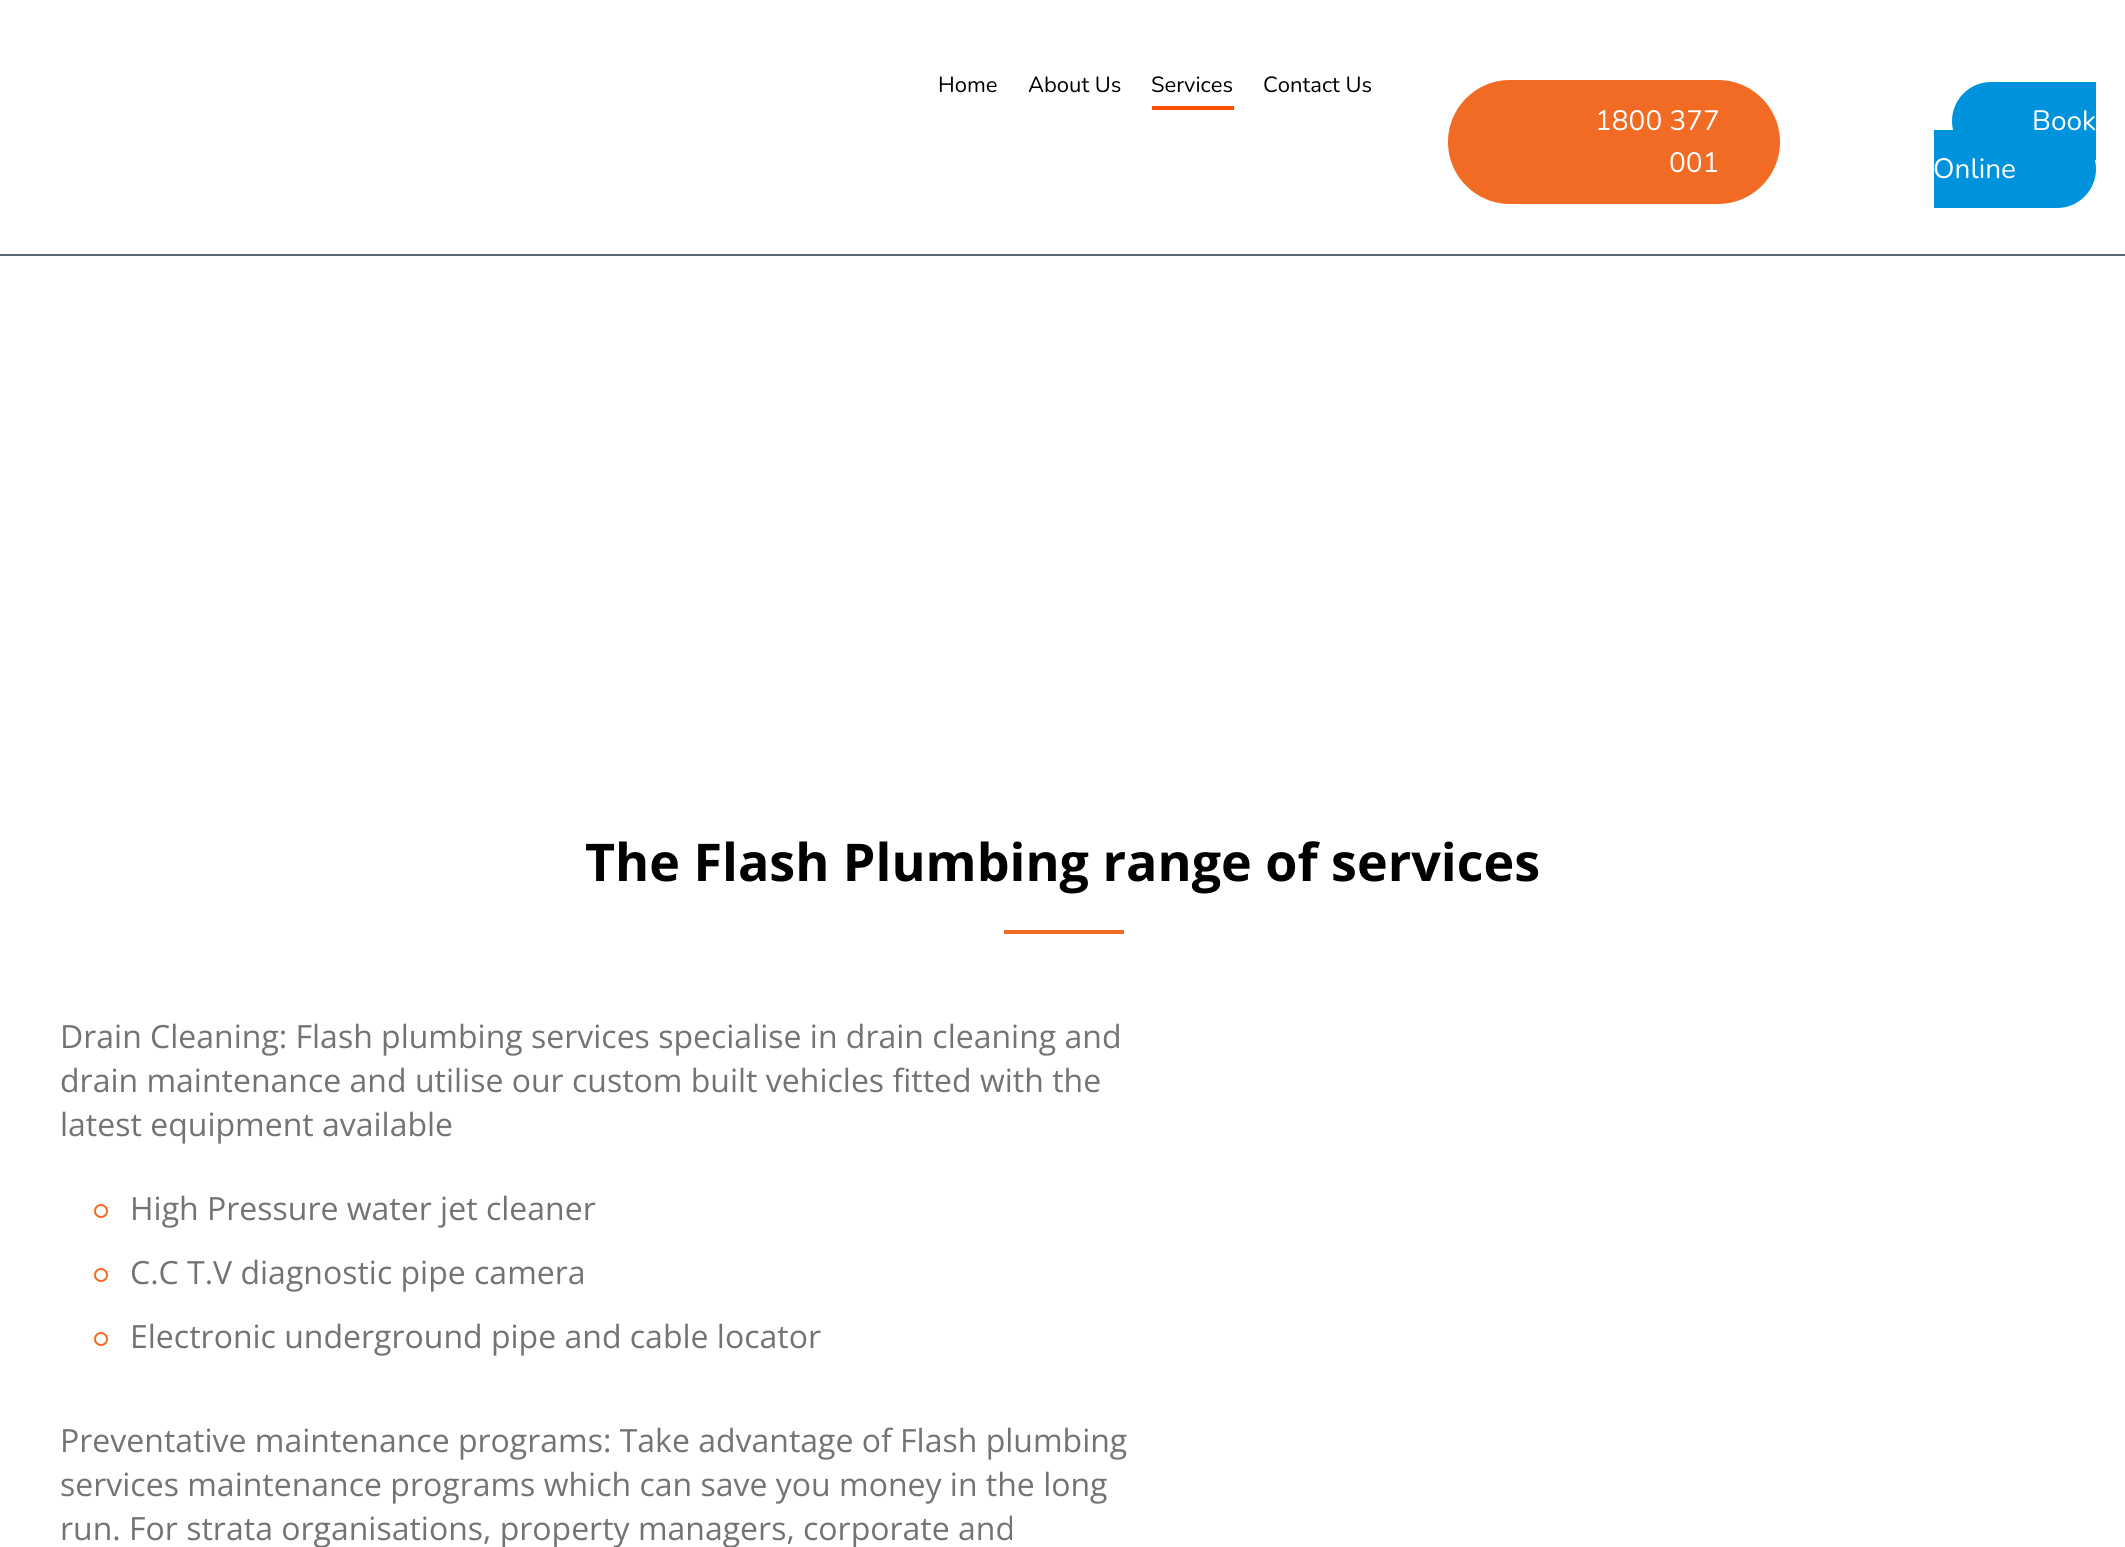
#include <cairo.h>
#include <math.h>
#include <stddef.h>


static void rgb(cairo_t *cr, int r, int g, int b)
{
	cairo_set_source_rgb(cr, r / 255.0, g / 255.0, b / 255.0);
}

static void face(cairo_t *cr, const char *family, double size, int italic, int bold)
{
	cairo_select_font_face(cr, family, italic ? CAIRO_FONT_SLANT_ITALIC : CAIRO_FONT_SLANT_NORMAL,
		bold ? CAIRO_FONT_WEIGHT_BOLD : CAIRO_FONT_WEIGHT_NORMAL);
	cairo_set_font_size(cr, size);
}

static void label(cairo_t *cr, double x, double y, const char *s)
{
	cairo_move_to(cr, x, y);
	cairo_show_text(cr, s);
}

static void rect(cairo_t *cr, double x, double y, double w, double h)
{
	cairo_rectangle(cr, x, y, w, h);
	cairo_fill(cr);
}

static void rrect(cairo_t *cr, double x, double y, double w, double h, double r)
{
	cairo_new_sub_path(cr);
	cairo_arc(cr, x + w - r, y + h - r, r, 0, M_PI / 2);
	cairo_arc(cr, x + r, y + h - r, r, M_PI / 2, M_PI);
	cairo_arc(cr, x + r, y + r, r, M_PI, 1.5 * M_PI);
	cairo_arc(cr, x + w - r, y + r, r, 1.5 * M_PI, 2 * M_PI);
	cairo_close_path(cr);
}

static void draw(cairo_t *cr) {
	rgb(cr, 255, 255, 255);
	cairo_paint(cr);
	rgb(cr, 90, 103, 114);
	rect(cr, 0, 254, 2125, 2);
	face(cr, "Nunito", 22, 0, 0);
	rgb(cr, 0, 0, 0);
	label(cr, 938, 92, "Home");
	label(cr, 1028, 92, "About Us");
	rgb(cr, 251, 78, 2);
	rect(cr, 1152, 106, 82, 4);
	rgb(cr, 0, 0, 0);
	label(cr, 1151, 92, "Services");
	label(cr, 1263, 92, "Contact Us");
	rgb(cr, 241, 107, 36);
	rrect(cr, 1448, 80, 332, 124, 62);
	cairo_fill(cr);
	face(cr, "Nunito", 28, 0, 0);
	rgb(cr, 255, 255, 255);
	label(cr, 1595, 130, "1800 377");
	label(cr, 1669, 172, "001");
	rgb(cr, 0, 147, 221);
	cairo_new_path(cr);
	cairo_move_to(cr, 1991, 82);
	cairo_line_to(cr, 2096, 82);
	cairo_line_to(cr, 2096, 160);
	cairo_line_to(cr, 1991, 160);
	cairo_curve_to(cr, 1969.5, 160, 1952, 142.5, 1952, 121);
	cairo_curve_to(cr, 1952, 99.5, 1969.5, 82, 1991, 82);
	cairo_close_path(cr);
	cairo_fill(cr);
	cairo_new_path(cr);
	cairo_move_to(cr, 1934, 130);
	cairo_line_to(cr, 2057, 130);
	cairo_curve_to(cr, 2078.5, 130, 2096, 147.5, 2096, 169);
	cairo_curve_to(cr, 2096, 190.5, 2078.5, 208, 2057, 208);
	cairo_line_to(cr, 1934, 208);
	cairo_close_path(cr);
	cairo_fill(cr);
	rgb(cr, 255, 255, 255);
	label(cr, 2032, 130, "Book");
	label(cr, 1933, 178, "Online");
	face(cr, "Open Sans", 52, 0, 1);
	rgb(cr, 0, 0, 0);
	label(cr, 585, 881, "The Flash Plumbing range of services");
	rgb(cr, 241, 107, 36);
	rect(cr, 1004, 930, 120, 4);
	face(cr, "Open Sans", 32, 0, 0);
	rgb(cr, 115, 115, 115);
	label(cr, 60, 1048, "Drain Cleaning: Flash plumbing services specialise in drain cleaning and");
	label(cr, 60, 1092, "drain maintenance and utilise our custom built vehicles fitted with the");
	label(cr, 60, 1136, "latest equipment available");
	cairo_new_path(cr);
	cairo_arc(cr, 101, 1211, 6, 0, 2 * M_PI);
	rgb(cr, 241, 107, 36);
	cairo_stroke(cr);
	rgb(cr, 115, 115, 115);
	label(cr, 130, 1220, "High Pressure water jet cleaner");
	cairo_new_path(cr);
	cairo_arc(cr, 101, 1275, 6, 0, 2 * M_PI);
	rgb(cr, 241, 107, 36);
	cairo_stroke(cr);
	rgb(cr, 115, 115, 115);
	label(cr, 130, 1284, "C.C T.V diagnostic pipe camera");
	cairo_new_path(cr);
	cairo_arc(cr, 101, 1339, 6, 0, 2 * M_PI);
	rgb(cr, 241, 107, 36);
	cairo_stroke(cr);
	rgb(cr, 115, 115, 115);
	label(cr, 130, 1348, "Electronic underground pipe and cable locator");
	label(cr, 60, 1452, "Preventative maintenance programs: Take advantage of Flash plumbing");
	label(cr, 60, 1496, "services maintenance programs which can save you money in the long");
	label(cr, 60, 1540, "run. For strata organisations, property managers, corporate and");
}

int main(void) {
	cairo_surface_t *surface = cairo_image_surface_create(CAIRO_FORMAT_RGB24, 2125, 1547);
	cairo_t *cr = cairo_create(surface);
	cairo_font_options_t *options = cairo_font_options_create();
	cairo_font_options_set_hint_metrics(options, CAIRO_HINT_METRICS_OFF);
	cairo_font_options_set_hint_style(options, CAIRO_HINT_STYLE_NONE);
	cairo_set_font_options(cr, options);
	cairo_set_miter_limit(cr, 4);
	draw(cr);
	cairo_surface_write_to_png(surface, "render.png");
	cairo_font_options_destroy(options);
	cairo_destroy(cr);
	cairo_surface_destroy(surface);
	return 0;
}
